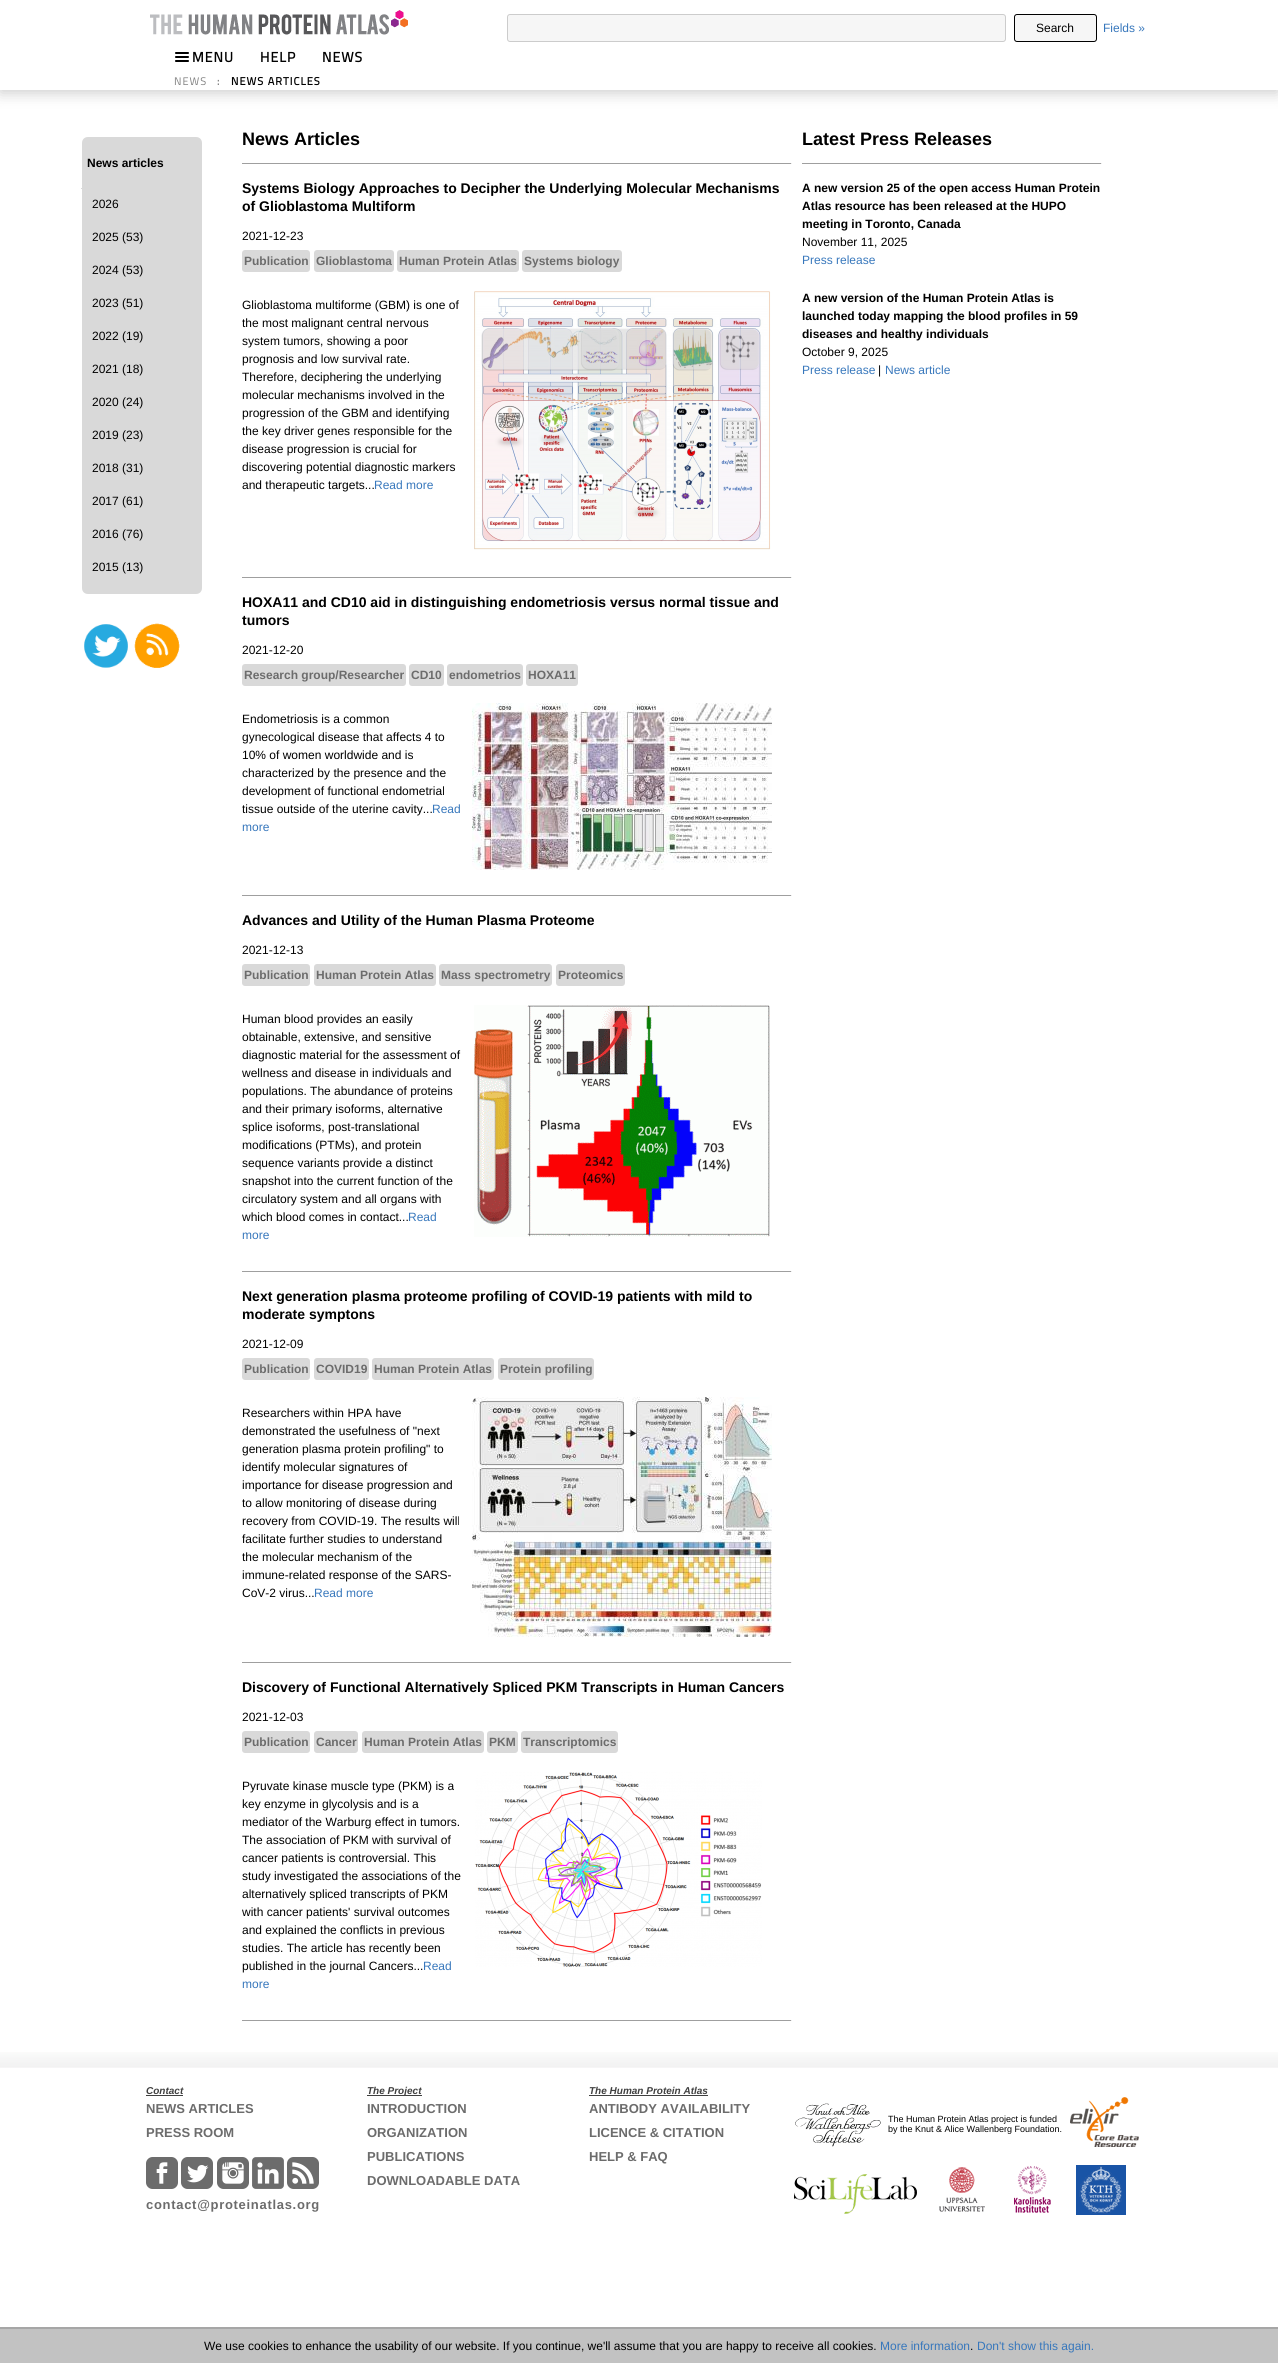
#include <cairo.h>
#include <math.h>
#include <stddef.h>


static void rgb(cairo_t *cr, int r, int g, int b)
{
	cairo_set_source_rgb(cr, r / 255.0, g / 255.0, b / 255.0);
}

static void face(cairo_t *cr, const char *family, double size, int italic, int bold)
{
	cairo_select_font_face(cr, family, italic ? CAIRO_FONT_SLANT_ITALIC : CAIRO_FONT_SLANT_NORMAL,
		bold ? CAIRO_FONT_WEIGHT_BOLD : CAIRO_FONT_WEIGHT_NORMAL);
	cairo_set_font_size(cr, size);
}

static void label(cairo_t *cr, double x, double y, const char *s)
{
	cairo_move_to(cr, x, y);
	cairo_show_text(cr, s);
}

static void tracked(cairo_t *cr, double x, double y, const char *s, double letter, double word)
{
	cairo_move_to(cr, x, y);
	while (*s) {
		char ch[5] = {0};
		int n = 0;
		do ch[n++] = *s++; while ((*s & 0xC0) == 0x80);
		cairo_show_text(cr, ch);
		cairo_rel_move_to(cr, letter + word * (*ch == ' '), 0);
	}
}

static void rect(cairo_t *cr, double x, double y, double w, double h)
{
	cairo_rectangle(cr, x, y, w, h);
	cairo_fill(cr);
}

static void rrect(cairo_t *cr, double x, double y, double w, double h, double r)
{
	cairo_new_sub_path(cr);
	cairo_arc(cr, x + w - r, y + h - r, r, 0, M_PI / 2);
	cairo_arc(cr, x + r, y + h - r, r, M_PI / 2, M_PI);
	cairo_arc(cr, x + r, y + r, r, M_PI, 1.5 * M_PI);
	cairo_arc(cr, x + w - r, y + r, r, 1.5 * M_PI, 2 * M_PI);
	cairo_close_path(cr);
}

static void soft_shadow(cairo_t *cr, double x, double y, double w, double h, double r, double blur, double alpha)
{
	cairo_push_group_with_content(cr, CAIRO_CONTENT_ALPHA);
	cairo_set_operator(cr, CAIRO_OPERATOR_SOURCE);
	for (int i = 15; i >= -15 && fmin(w, h) + blur * i / 3 > 0; i -= 2) {
		double e = blur * i / 6;
		cairo_set_source_rgba(cr, 0, 0, 0, alpha * erfc((i - 1) / 8.5) / 2);
		rrect(cr, x - e, y - e, w + 2 * e, h + 2 * e, fmax(0, fmin(r + e + blur * .6, fmin(w, h) / 2 + e)));
		cairo_fill(cr);
	}
	cairo_pattern_t *soft = cairo_pop_group(cr);
	cairo_mask(cr, soft);
	cairo_pattern_destroy(soft);
}

static void image(cairo_t *cr, const char *path, double x, double y, double w, double h)
{
	cairo_surface_t *image = cairo_image_surface_create_from_png(path);
	cairo_save(cr);
	cairo_set_source_surface(cr, image, x, y);
	cairo_rectangle(cr, x, y, w, h);
	cairo_fill(cr);
	cairo_restore(cr);
	cairo_surface_destroy(image);
}

static void draw(cairo_t *cr) {
	rgb(cr, 255, 255, 255);
	cairo_paint(cr);
	rgb(cr, 0, 0, 0);
	soft_shadow(cr, 0, 3, 1278, 90, 0, 7.5, 0.2);
	rgb(cr, 255, 255, 255);
	rect(cr, 0, 0, 1278, 90);
	image(cr, "image0.png", 150, 14, 239, 21);
	image(cr, "image1.png", 391, 10, 17, 18);
	rgb(cr, 246, 246, 246);
	rrect(cr, 507.5, 14.5, 498, 27, 2.5);
	cairo_fill_preserve(cr);
	rgb(cr, 204, 204, 204);
	cairo_set_line_width(cr, 1);
	cairo_stroke(cr);
	rgb(cr, 246, 246, 246);
	rrect(cr, 1014.5, 14.5, 82, 27, 2.5);
	cairo_fill_preserve(cr);
	rgb(cr, 0, 0, 0);
	cairo_stroke(cr);
	face(cr, "Liberation Sans", 12, 0, 0);
	label(cr, 1036, 32, "Search");
	rgb(cr, 55, 119, 188);
	label(cr, 1103, 32, "Fields »");
	image(cr, "image2.png", 175, 52, 14, 10);
	face(cr, "Titillium Web", 14, 0, 1);
	rgb(cr, 0, 0, 0);
	tracked(cr, 192, 62, "MENU", 1, 0);
	tracked(cr, 260, 62, "HELP", 1, 0);
	tracked(cr, 322, 62, "NEWS", 1, 0);
	face(cr, "Titillium Web", 11, 0, 0);
	rgb(cr, 128, 128, 128);
	tracked(cr, 174, 85, "NEWS", 1, 0);
	face(cr, "Titillium Web", 11, 0, 1);
	tracked(cr, 217, 85, ":", 1, 0);
	rgb(cr, 0, 0, 0);
	tracked(cr, 231, 85, "NEWS ARTICLES", 1, 0);
	rgb(cr, 217, 217, 217);
	cairo_new_path(cr);
	cairo_move_to(cr, 88, 137);
	cairo_line_to(cr, 196, 137);
	cairo_curve_to(cr, 199.5, 137, 202, 139.5, 202, 143);
	cairo_line_to(cr, 202, 189);
	cairo_line_to(cr, 82, 189);
	cairo_line_to(cr, 82, 143);
	cairo_curve_to(cr, 82, 139.5, 84.5, 137, 88, 137);
	cairo_close_path(cr);
	cairo_fill(cr);
	rect(cr, 81, 188, 1, 1);
	face(cr, "Liberation Sans", 12, 0, 1);
	rgb(cr, 0, 0, 0);
	label(cr, 87, 167, "News articles");
	rgb(cr, 217, 217, 217);
	rect(cr, 82, 189, 120, 396);
	face(cr, "Liberation Sans", 12, 0, 0);
	rgb(cr, 0, 0, 0);
	label(cr, 92, 208, "2026");
	label(cr, 92, 241, "2025 (53)");
	label(cr, 92, 274, "2024 (53)");
	label(cr, 92, 307, "2023 (51)");
	label(cr, 92, 340, "2022 (19)");
	label(cr, 92, 373, "2021 (18)");
	label(cr, 92, 406, "2020 (24)");
	label(cr, 92, 439, "2019 (23)");
	label(cr, 92, 472, "2018 (31)");
	label(cr, 92, 505, "2017 (61)");
	label(cr, 92, 538, "2016 (76)");
	label(cr, 92, 571, "2015 (13)");
	rgb(cr, 217, 217, 217);
	cairo_new_path(cr);
	cairo_move_to(cr, 82, 585);
	cairo_line_to(cr, 202, 585);
	cairo_line_to(cr, 202, 588);
	cairo_curve_to(cr, 202, 591.5, 199.5, 594, 196, 594);
	cairo_line_to(cr, 88, 594);
	cairo_curve_to(cr, 84.5, 594, 82, 591.5, 82, 588);
	cairo_close_path(cr);
	cairo_fill(cr);
	image(cr, "image3.png", 84, 624, 44, 44);
	image(cr, "image4.png", 134, 623, 46, 46);
	face(cr, "Liberation Sans", 18, 0, 1);
	rgb(cr, 0, 0, 0);
	label(cr, 242, 145, "News Articles");
	rgb(cr, 159, 159, 159);
	rect(cr, 242, 163, 550, 1);
	rgb(cr, 238, 238, 238);
	rect(cr, 791, 163, 1, 1);
	face(cr, "Liberation Sans", 14, 0, 1);
	rgb(cr, 0, 0, 0);
	label(cr, 242, 193, "Systems Biology Approaches to Decipher the Underlying Molecular Mechanisms");
	label(cr, 242, 211, "of Glioblastoma Multiform");
	face(cr, "Liberation Sans", 12, 0, 0);
	label(cr, 242, 240, "2021-12-23");
	rgb(cr, 217, 217, 217);
	rrect(cr, 242, 250, 68, 22, 3);
	cairo_fill(cr);
	face(cr, "Liberation Sans", 12, 0, 1);
	rgb(cr, 108, 108, 108);
	label(cr, 244, 265, "Publication");
	rgb(cr, 217, 217, 217);
	rrect(cr, 314, 250, 80, 22, 3);
	cairo_fill(cr);
	rgb(cr, 108, 108, 108);
	label(cr, 316, 265, "Glioblastoma");
	rgb(cr, 217, 217, 217);
	rrect(cr, 397, 250, 122, 22, 3);
	cairo_fill(cr);
	rgb(cr, 108, 108, 108);
	label(cr, 399, 265, "Human Protein Atlas");
	rgb(cr, 217, 217, 217);
	rrect(cr, 522, 250, 100, 22, 3);
	cairo_fill(cr);
	rgb(cr, 108, 108, 108);
	label(cr, 524, 265, "Systems biology");
	face(cr, "Liberation Sans", 12, 0, 0);
	rgb(cr, 0, 0, 0);
	label(cr, 242, 309, "Glioblastoma multiforme (GBM) is one of");
	label(cr, 242, 327, "the most malignant central nervous");
	label(cr, 242, 345, "system tumors, showing a poor");
	label(cr, 242, 363, "prognosis and low survival rate.");
	label(cr, 242, 381, "Therefore, deciphering the underlying");
	label(cr, 242, 399, "molecular mechanisms involved in the");
	label(cr, 242, 417, "progression of the GBM and identifying");
	label(cr, 242, 435, "the key driver genes responsible for the");
	label(cr, 242, 453, "disease progression is crucial for");
	label(cr, 242, 471, "discovering potential diagnostic markers");
	label(cr, 242, 489, "and therapeutic targets...");
	rgb(cr, 55, 119, 188);
	label(cr, 374, 489, "Read more");
	image(cr, "image5.png", 474, 291, 297, 259);
	rgb(cr, 159, 159, 159);
	rect(cr, 242, 577, 550, 1);
	rgb(cr, 238, 238, 238);
	rect(cr, 791, 577, 1, 1);
	face(cr, "Liberation Sans", 14, 0, 1);
	rgb(cr, 0, 0, 0);
	label(cr, 242, 607, "HOXA11 and CD10 aid in distinguishing endometriosis versus normal tissue and");
	label(cr, 242, 625, "tumors");
	face(cr, "Liberation Sans", 12, 0, 0);
	label(cr, 242, 654, "2021-12-20");
	rgb(cr, 217, 217, 217);
	rrect(cr, 242, 664, 164, 22, 3);
	cairo_fill(cr);
	face(cr, "Liberation Sans", 12, 0, 1);
	rgb(cr, 108, 108, 108);
	label(cr, 244, 679, "Research group/Researcher");
	rgb(cr, 217, 217, 217);
	rrect(cr, 409, 664, 35, 22, 3);
	cairo_fill(cr);
	rgb(cr, 108, 108, 108);
	label(cr, 411, 679, "CD10");
	rgb(cr, 217, 217, 217);
	rrect(cr, 447, 664, 76, 22, 3);
	cairo_fill(cr);
	rgb(cr, 108, 108, 108);
	label(cr, 449, 679, "endometrios");
	rgb(cr, 217, 217, 217);
	rrect(cr, 526, 664, 52, 22, 3);
	cairo_fill(cr);
	rgb(cr, 108, 108, 108);
	label(cr, 528, 679, "HOXA11");
	face(cr, "Liberation Sans", 12, 0, 0);
	rgb(cr, 0, 0, 0);
	label(cr, 242, 723, "Endometriosis is a common");
	label(cr, 242, 741, "gynecological disease that affects 4 to");
	label(cr, 242, 759, "10% of women worldwide and is");
	label(cr, 242, 777, "characterized by the presence and the");
	label(cr, 242, 795, "development of functional endometrial");
	label(cr, 242, 813, "tissue outside of the uterine cavity...");
	rgb(cr, 55, 119, 188);
	label(cr, 432, 813, "Read");
	label(cr, 242, 831, "more");
	image(cr, "image6.png", 472, 703, 300, 167);
	rgb(cr, 159, 159, 159);
	rect(cr, 242, 895, 550, 1);
	rgb(cr, 238, 238, 238);
	rect(cr, 791, 895, 1, 1);
	face(cr, "Liberation Sans", 14, 0, 1);
	rgb(cr, 0, 0, 0);
	label(cr, 242, 925, "Advances and Utility of the Human Plasma Proteome");
	face(cr, "Liberation Sans", 12, 0, 0);
	label(cr, 242, 954, "2021-12-13");
	rgb(cr, 217, 217, 217);
	rrect(cr, 242, 964, 68, 22, 3);
	cairo_fill(cr);
	face(cr, "Liberation Sans", 12, 0, 1);
	rgb(cr, 108, 108, 108);
	label(cr, 244, 979, "Publication");
	rgb(cr, 217, 217, 217);
	rrect(cr, 314, 964, 122, 22, 3);
	cairo_fill(cr);
	rgb(cr, 108, 108, 108);
	label(cr, 316, 979, "Human Protein Atlas");
	rgb(cr, 217, 217, 217);
	rrect(cr, 439, 964, 113, 22, 3);
	cairo_fill(cr);
	rgb(cr, 108, 108, 108);
	label(cr, 441, 979, "Mass spectrometry");
	rgb(cr, 217, 217, 217);
	rrect(cr, 556, 964, 69, 22, 3);
	cairo_fill(cr);
	rgb(cr, 108, 108, 108);
	label(cr, 558, 979, "Proteomics");
	face(cr, "Liberation Sans", 12, 0, 0);
	rgb(cr, 0, 0, 0);
	label(cr, 242, 1023, "Human blood provides an easily");
	label(cr, 242, 1041, "obtainable, extensive, and sensitive");
	label(cr, 242, 1059, "diagnostic material for the assessment of");
	label(cr, 242, 1077, "wellness and disease in individuals and");
	label(cr, 242, 1095, "populations. The abundance of proteins");
	label(cr, 242, 1113, "and their primary isoforms, alternative");
	label(cr, 242, 1131, "splice isoforms, post-translational");
	label(cr, 242, 1149, "modifications (PTMs), and protein");
	label(cr, 242, 1167, "sequence variants provide a distinct");
	label(cr, 242, 1185, "snapshot into the current function of the");
	label(cr, 242, 1203, "circulatory system and all organs with");
	label(cr, 242, 1221, "which blood comes in contact...");
	rgb(cr, 55, 119, 188);
	label(cr, 408, 1221, "Read");
	label(cr, 242, 1239, "more");
	image(cr, "image7.png", 474, 1005, 296, 232);
	rgb(cr, 159, 159, 159);
	rect(cr, 242, 1271, 550, 1);
	rgb(cr, 238, 238, 238);
	rect(cr, 791, 1271, 1, 1);
	face(cr, "Liberation Sans", 14, 0, 1);
	rgb(cr, 0, 0, 0);
	label(cr, 242, 1301, "Next generation plasma proteome profiling of COVID-19 patients with mild to");
	label(cr, 242, 1319, "moderate symptons");
	face(cr, "Liberation Sans", 12, 0, 0);
	label(cr, 242, 1348, "2021-12-09");
	rgb(cr, 217, 217, 217);
	rrect(cr, 242, 1358, 68, 22, 3);
	cairo_fill(cr);
	face(cr, "Liberation Sans", 12, 0, 1);
	rgb(cr, 108, 108, 108);
	label(cr, 244, 1373, "Publication");
	rgb(cr, 217, 217, 217);
	rrect(cr, 314, 1358, 55, 22, 3);
	cairo_fill(cr);
	rgb(cr, 108, 108, 108);
	label(cr, 316, 1373, "COVID19");
	rgb(cr, 217, 217, 217);
	rrect(cr, 372, 1358, 122, 22, 3);
	cairo_fill(cr);
	rgb(cr, 108, 108, 108);
	label(cr, 374, 1373, "Human Protein Atlas");
	rgb(cr, 217, 217, 217);
	rrect(cr, 498, 1358, 96, 22, 3);
	cairo_fill(cr);
	rgb(cr, 108, 108, 108);
	label(cr, 500, 1373, "Protein profiling");
	face(cr, "Liberation Sans", 12, 0, 0);
	rgb(cr, 0, 0, 0);
	label(cr, 242, 1417, "Researchers within HPA have");
	label(cr, 242, 1435, "demonstrated the usefulness of \"next");
	label(cr, 242, 1453, "generation plasma protein profiling\" to");
	label(cr, 242, 1471, "identify molecular signatures of");
	label(cr, 242, 1489, "importance for disease progression and");
	label(cr, 242, 1507, "to allow monitoring of disease during");
	label(cr, 242, 1525, "recovery from COVID-19. The results will");
	label(cr, 242, 1543, "facilitate further studies to understand");
	label(cr, 242, 1561, "the molecular mechanism of the");
	label(cr, 242, 1579, "immune-related response of the SARS-");
	label(cr, 242, 1597, "CoV-2 virus...");
	rgb(cr, 55, 119, 188);
	label(cr, 314, 1597, "Read more");
	image(cr, "image8.png", 472, 1397, 300, 240);
	rgb(cr, 159, 159, 159);
	rect(cr, 242, 1662, 550, 1);
	rgb(cr, 238, 238, 238);
	rect(cr, 791, 1662, 1, 1);
	face(cr, "Liberation Sans", 14, 0, 1);
	rgb(cr, 0, 0, 0);
	label(cr, 242, 1692, "Discovery of Functional Alternatively Spliced PKM Transcripts in Human Cancers");
	face(cr, "Liberation Sans", 12, 0, 0);
	label(cr, 242, 1721, "2021-12-03");
	rgb(cr, 217, 217, 217);
	rrect(cr, 242, 1731, 68, 22, 3);
	cairo_fill(cr);
	face(cr, "Liberation Sans", 12, 0, 1);
	rgb(cr, 108, 108, 108);
	label(cr, 244, 1746, "Publication");
	rgb(cr, 217, 217, 217);
	rrect(cr, 314, 1731, 44, 22, 3);
	cairo_fill(cr);
	rgb(cr, 108, 108, 108);
	label(cr, 316, 1746, "Cancer");
	rgb(cr, 217, 217, 217);
	rrect(cr, 362, 1731, 122, 22, 3);
	cairo_fill(cr);
	rgb(cr, 108, 108, 108);
	label(cr, 364, 1746, "Human Protein Atlas");
	rgb(cr, 217, 217, 217);
	rrect(cr, 487, 1731, 31, 22, 3);
	cairo_fill(cr);
	rgb(cr, 108, 108, 108);
	label(cr, 489, 1746, "PKM");
	rgb(cr, 217, 217, 217);
	rrect(cr, 521, 1731, 97, 22, 3);
	cairo_fill(cr);
	rgb(cr, 108, 108, 108);
	label(cr, 523, 1746, "Transcriptomics");
	face(cr, "Liberation Sans", 12, 0, 0);
	rgb(cr, 0, 0, 0);
	label(cr, 242, 1790, "Pyruvate kinase muscle type (PKM) is a");
	label(cr, 242, 1808, "key enzyme in glycolysis and is a");
	label(cr, 242, 1826, "mediator of the Warburg effect in tumors.");
	label(cr, 242, 1844, "The association of PKM with survival of");
	label(cr, 242, 1862, "cancer patients is controversial. This");
	label(cr, 242, 1880, "study investigated the associations of the");
	label(cr, 242, 1898, "alternatively spliced transcripts of PKM");
	label(cr, 242, 1916, "with cancer patients' survival outcomes");
	label(cr, 242, 1934, "and explained the conflicts in previous");
	label(cr, 242, 1952, "studies. The article has recently been");
	label(cr, 242, 1970, "published in the journal Cancers...");
	rgb(cr, 55, 119, 188);
	label(cr, 423, 1970, "Read");
	label(cr, 242, 1988, "more");
	image(cr, "image9.png", 475, 1772, 287, 195);
	rgb(cr, 159, 159, 159);
	rect(cr, 242, 2020, 550, 1);
	rgb(cr, 238, 238, 238);
	rect(cr, 791, 2020, 1, 1);
	face(cr, "Liberation Sans", 18, 0, 1);
	rgb(cr, 0, 0, 0);
	label(cr, 802, 145, "Latest Press Releases");
	rgb(cr, 159, 159, 159);
	rect(cr, 802, 163, 300, 1);
	rgb(cr, 238, 238, 238);
	rect(cr, 1101, 163, 1, 1);
	face(cr, "Liberation Sans", 12, 0, 1);
	rgb(cr, 0, 0, 0);
	label(cr, 802, 192, "A new version 25 of the open access Human Protein");
	label(cr, 802, 210, "Atlas resource has been released at the HUPO");
	label(cr, 802, 228, "meeting in Toronto, Canada");
	face(cr, "Liberation Sans", 12, 0, 0);
	label(cr, 802, 246, "November 11, 2025");
	rgb(cr, 55, 119, 188);
	label(cr, 802, 264, "Press release");
	face(cr, "Liberation Sans", 12, 0, 1);
	rgb(cr, 0, 0, 0);
	label(cr, 802, 302, "A new version of the Human Protein Atlas is");
	label(cr, 802, 320, "launched today mapping the blood profiles in 59");
	label(cr, 802, 338, "diseases and healthy individuals");
	face(cr, "Liberation Sans", 12, 0, 0);
	label(cr, 802, 356, "October 9, 2025");
	rgb(cr, 55, 119, 188);
	label(cr, 802, 374, "Press release");
	rgb(cr, 0, 0, 0);
	label(cr, 878, 374, "|");
	rgb(cr, 55, 119, 188);
	label(cr, 885, 374, "News article");
	image(cr, "image10.png", 0, 2052, 1278, 16);
	face(cr, "Liberation Sans", 10, 1, 1);
	rgb(cr, 64, 64, 64);
	label(cr, 146, 2094, "Contact");
	rect(cr, 146, 2095, 37, 1);
	face(cr, "Liberation Sans", 13, 0, 1);
	rgb(cr, 108, 108, 108);
	label(cr, 146, 2113, "NEWS ARTICLES");
	label(cr, 146, 2137, "PRESS ROOM");
	image(cr, "image11.png", 146, 2157, 32, 32);
	image(cr, "image12.png", 181, 2157, 32, 32);
	image(cr, "image13.png", 217, 2157, 32, 32);
	image(cr, "image14.png", 252, 2157, 32, 32);
	image(cr, "image15.png", 287, 2157, 32, 32);
	tracked(cr, 146, 2209, "contact@proteinatlas.org", 0.7, 0);
	rgb(cr, 64, 64, 64);
	rect(cr, 367, 2095, 55, 1);
	face(cr, "Liberation Sans", 10, 1, 1);
	label(cr, 367, 2094, "The Project");
	face(cr, "Liberation Sans", 13, 0, 1);
	rgb(cr, 108, 108, 108);
	label(cr, 367, 2113, "INTRODUCTION");
	label(cr, 367, 2137, "ORGANIZATION");
	label(cr, 367, 2161, "PUBLICATIONS");
	label(cr, 367, 2185, "DOWNLOADABLE DATA");
	face(cr, "Liberation Sans", 10, 1, 1);
	rgb(cr, 64, 64, 64);
	label(cr, 589, 2094, "The Human Protein Atlas");
	rect(cr, 589, 2095, 119, 1);
	face(cr, "Liberation Sans", 13, 0, 1);
	rgb(cr, 108, 108, 108);
	label(cr, 589, 2113, "ANTIBODY AVAILABILITY");
	label(cr, 589, 2137, "LICENCE & CITATION");
	label(cr, 589, 2161, "HELP & FAQ");
	image(cr, "image16.png", 795, 2103, 86, 44);
	face(cr, "Liberation Sans", 9, 0, 0);
	rgb(cr, 0, 0, 0);
	label(cr, 888, 2122, "The Human Protein Atlas project is funded");
	label(cr, 888, 2132, "by the Knut & Alice Wallenberg Foundation.");
	image(cr, "image17.png", 1070, 2097, 69, 50);
	image(cr, "image18.png", 794, 2174, 123, 40);
	image(cr, "image19.png", 939, 2167, 46, 45);
	image(cr, "image20.png", 1014, 2166, 37, 47);
	image(cr, "image21.png", 1076, 2165, 50, 50);
	rgb(cr, 194, 194, 194);
	rect(cr, 0, 2329, 1278, 34);
	rgb(cr, 166, 166, 166);
	rect(cr, 0, 2327, 1278, 2);
	face(cr, "Liberation Sans", 12, 0, 0);
	rgb(cr, 0, 0, 0);
	label(cr, 204, 2350, "We use cookies to enhance the usability of our website. If you continue, we'll assume that you are happy to receive all cookies.");
	rgb(cr, 55, 119, 188);
	label(cr, 880, 2350, "More information");
	rgb(cr, 0, 0, 0);
	label(cr, 970, 2350, ".");
	rgb(cr, 55, 119, 188);
	label(cr, 977, 2350, "Don't show this again.");
}

int main(void) {
	cairo_surface_t *surface = cairo_image_surface_create(CAIRO_FORMAT_RGB24, 1278, 2363);
	cairo_t *cr = cairo_create(surface);
	cairo_font_options_t *options = cairo_font_options_create();
	cairo_font_options_set_hint_metrics(options, CAIRO_HINT_METRICS_OFF);
	cairo_font_options_set_hint_style(options, CAIRO_HINT_STYLE_NONE);
	cairo_set_font_options(cr, options);
	cairo_set_miter_limit(cr, 4);
	draw(cr);
	cairo_surface_write_to_png(surface, "render.png");
	cairo_font_options_destroy(options);
	cairo_destroy(cr);
	cairo_surface_destroy(surface);
	return 0;
}
